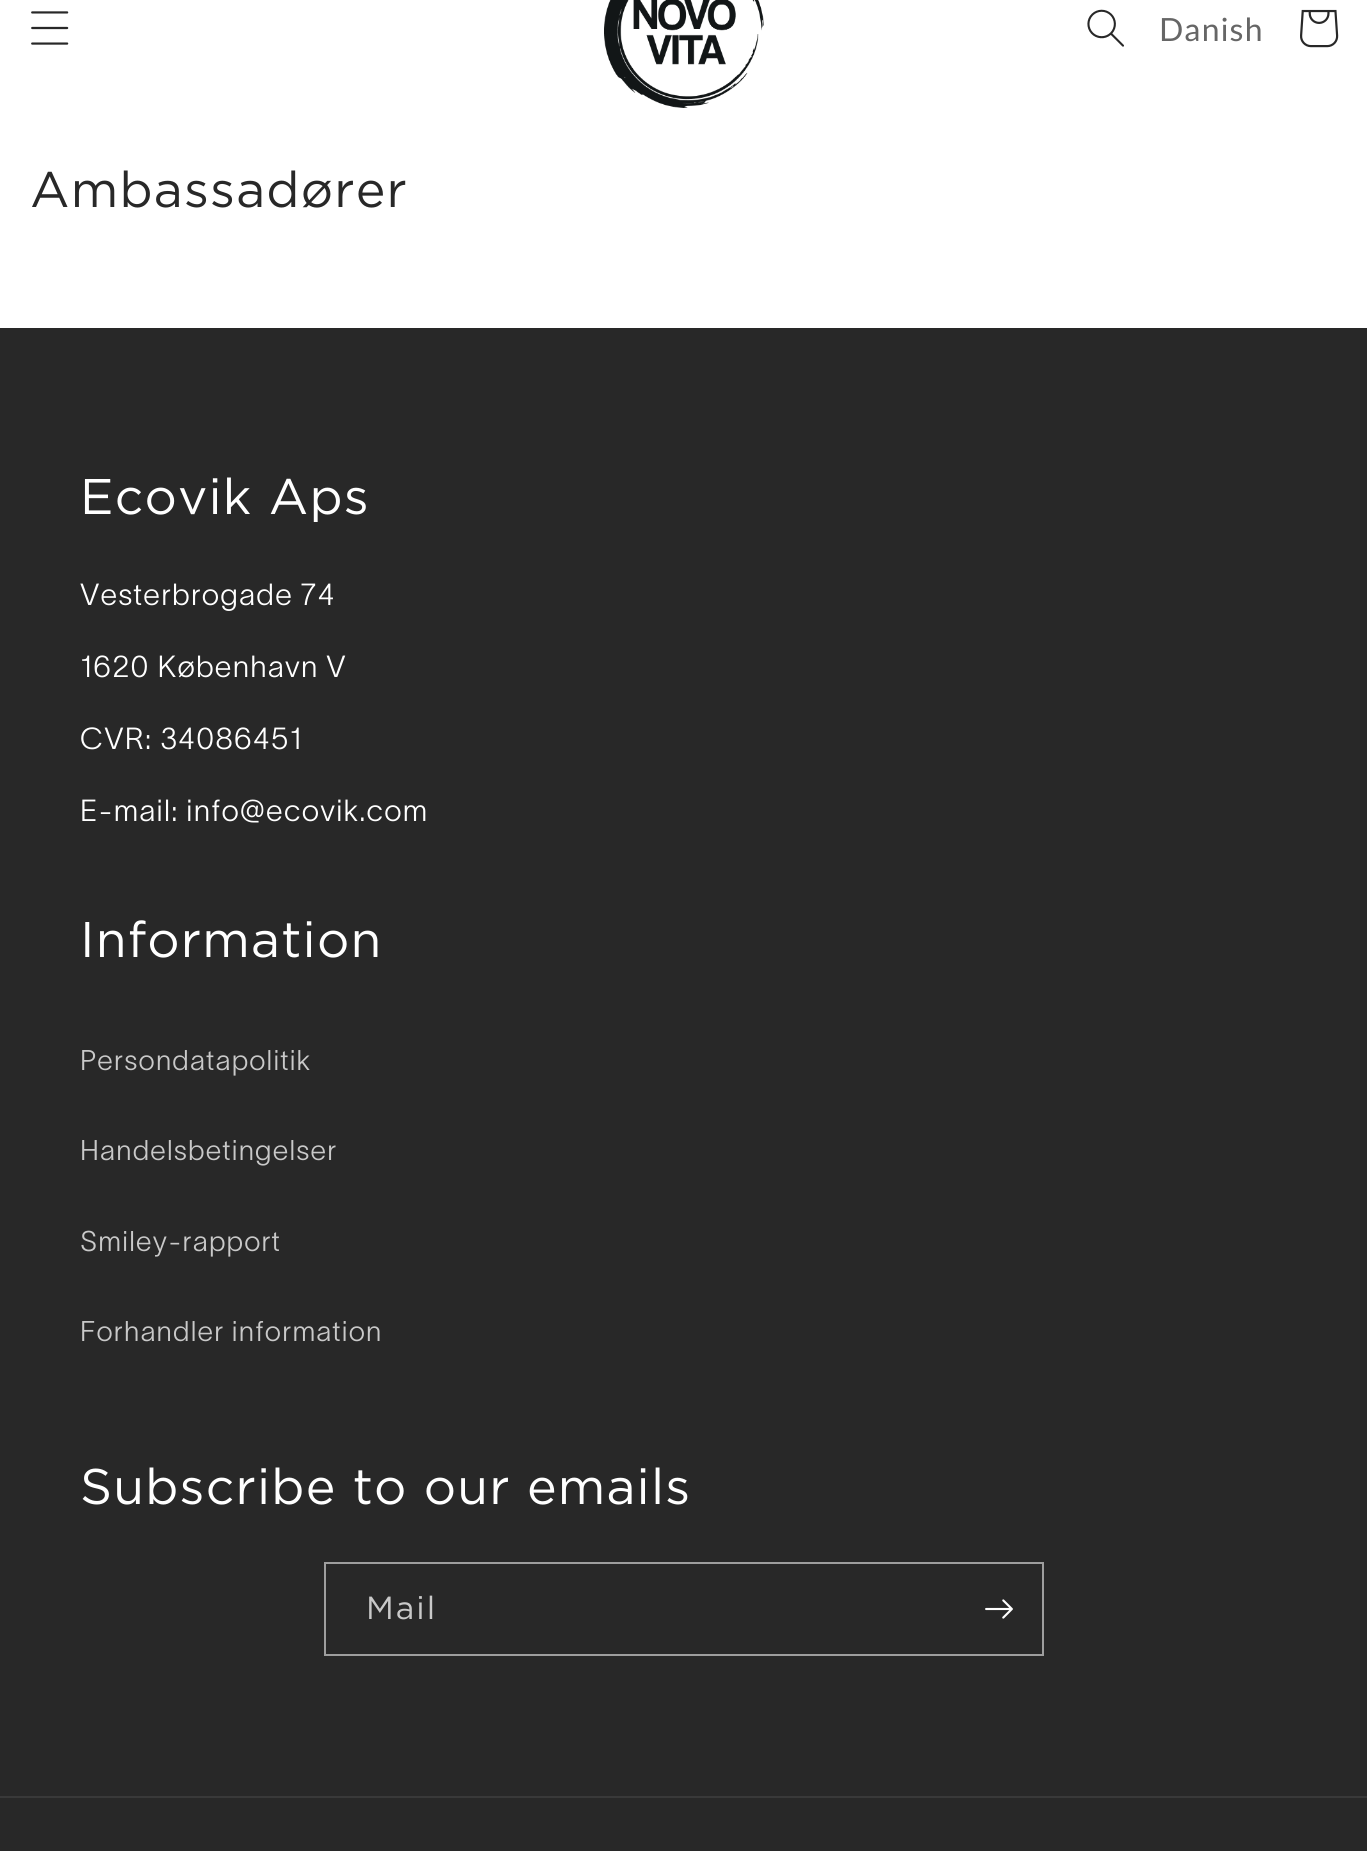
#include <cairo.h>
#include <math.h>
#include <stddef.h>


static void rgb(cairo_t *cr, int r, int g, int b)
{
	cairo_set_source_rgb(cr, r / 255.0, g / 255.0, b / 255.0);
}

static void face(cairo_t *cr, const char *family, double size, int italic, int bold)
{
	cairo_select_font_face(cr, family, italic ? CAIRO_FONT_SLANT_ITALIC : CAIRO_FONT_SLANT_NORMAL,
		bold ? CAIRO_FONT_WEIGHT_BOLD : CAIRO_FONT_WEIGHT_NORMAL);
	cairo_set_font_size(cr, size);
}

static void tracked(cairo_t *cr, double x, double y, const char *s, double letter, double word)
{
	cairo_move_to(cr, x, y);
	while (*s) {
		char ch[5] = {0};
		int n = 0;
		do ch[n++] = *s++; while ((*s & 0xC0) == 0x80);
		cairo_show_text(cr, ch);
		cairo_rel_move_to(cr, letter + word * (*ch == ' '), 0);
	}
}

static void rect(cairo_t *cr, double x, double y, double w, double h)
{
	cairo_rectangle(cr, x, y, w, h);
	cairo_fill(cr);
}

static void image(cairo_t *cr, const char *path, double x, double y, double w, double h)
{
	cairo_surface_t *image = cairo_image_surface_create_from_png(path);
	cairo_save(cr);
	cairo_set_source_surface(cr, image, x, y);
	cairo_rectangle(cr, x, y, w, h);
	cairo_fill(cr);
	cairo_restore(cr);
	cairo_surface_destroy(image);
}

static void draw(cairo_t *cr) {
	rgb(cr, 255, 255, 255);
	cairo_paint(cr);
	image(cr, "image0.png", 31, 11, 38, 34);
	image(cr, "image1.png", 604, 0, 160, 108);
	image(cr, "image2.png", 1087, 9, 37, 38);
	face(cr, "Lato", 32, 0, 0);
	rgb(cr, 102, 102, 102);
	tracked(cr, 1159, 41, "Danish", 1.2, 0);
	image(cr, "image3.png", 1300, 9, 39, 39);
	face(cr, "Gotham", 50, 0, 0);
	rgb(cr, 40, 40, 40);
	tracked(cr, 30, 207, "Ambassadører", 1.2, 0);
	rect(cr, 0, 328, 1367, 1523);
	rgb(cr, 255, 255, 255);
	tracked(cr, 80, 514, "Ecovik Aps", 1.2, 0);
	face(cr, "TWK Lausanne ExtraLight", 30, 0, 0);
	tracked(cr, 80, 605, "Vesterbrogade 74", 1.2, 0);
	tracked(cr, 80, 677, "1620 København V", 1.2, 0);
	tracked(cr, 80, 749, "CVR: 34086451", 1.2, 0);
	tracked(cr, 80, 821, "E-mail: info@ecovik.com", 1.2, 0);
	face(cr, "Gotham", 50, 0, 0);
	tracked(cr, 80, 957, "Information", 1.2, 0);
	face(cr, "TWK Lausanne ExtraLight", 28, 0, 0);
	rgb(cr, 201, 201, 201);
	tracked(cr, 80, 1070, "Persondatapolitik", 1.2, 0);
	tracked(cr, 80, 1160, "Handelsbetingelser", 1.2, 0);
	tracked(cr, 80, 1251, "Smiley-rapport", 1.2, 0);
	tracked(cr, 80, 1341, "Forhandler information", 1.2, 0);
	face(cr, "Gotham", 50, 0, 0);
	rgb(cr, 255, 255, 255);
	tracked(cr, 80, 1504, "Subscribe to our emails", 1.2, 0);
	cairo_rectangle(cr, 325, 1563, 718, 92);
	rgb(cr, 158, 158, 158);
	cairo_stroke(cr);
	face(cr, "Gotham", 32, 0, 0);
	rgb(cr, 201, 201, 201);
	tracked(cr, 366, 1619, "Mail", 2, 0);
	image(cr, "image4.png", 985, 1599, 28, 20);
	rgb(cr, 57, 57, 57);
	rect(cr, 0, 1796, 1367, 2);
}

int main(void) {
	cairo_surface_t *surface = cairo_image_surface_create(CAIRO_FORMAT_RGB24, 1367, 1851);
	cairo_t *cr = cairo_create(surface);
	cairo_font_options_t *options = cairo_font_options_create();
	cairo_font_options_set_hint_metrics(options, CAIRO_HINT_METRICS_OFF);
	cairo_font_options_set_hint_style(options, CAIRO_HINT_STYLE_NONE);
	cairo_set_font_options(cr, options);
	cairo_set_miter_limit(cr, 4);
	draw(cr);
	cairo_surface_write_to_png(surface, "render.png");
	cairo_font_options_destroy(options);
	cairo_destroy(cr);
	cairo_surface_destroy(surface);
	return 0;
}
